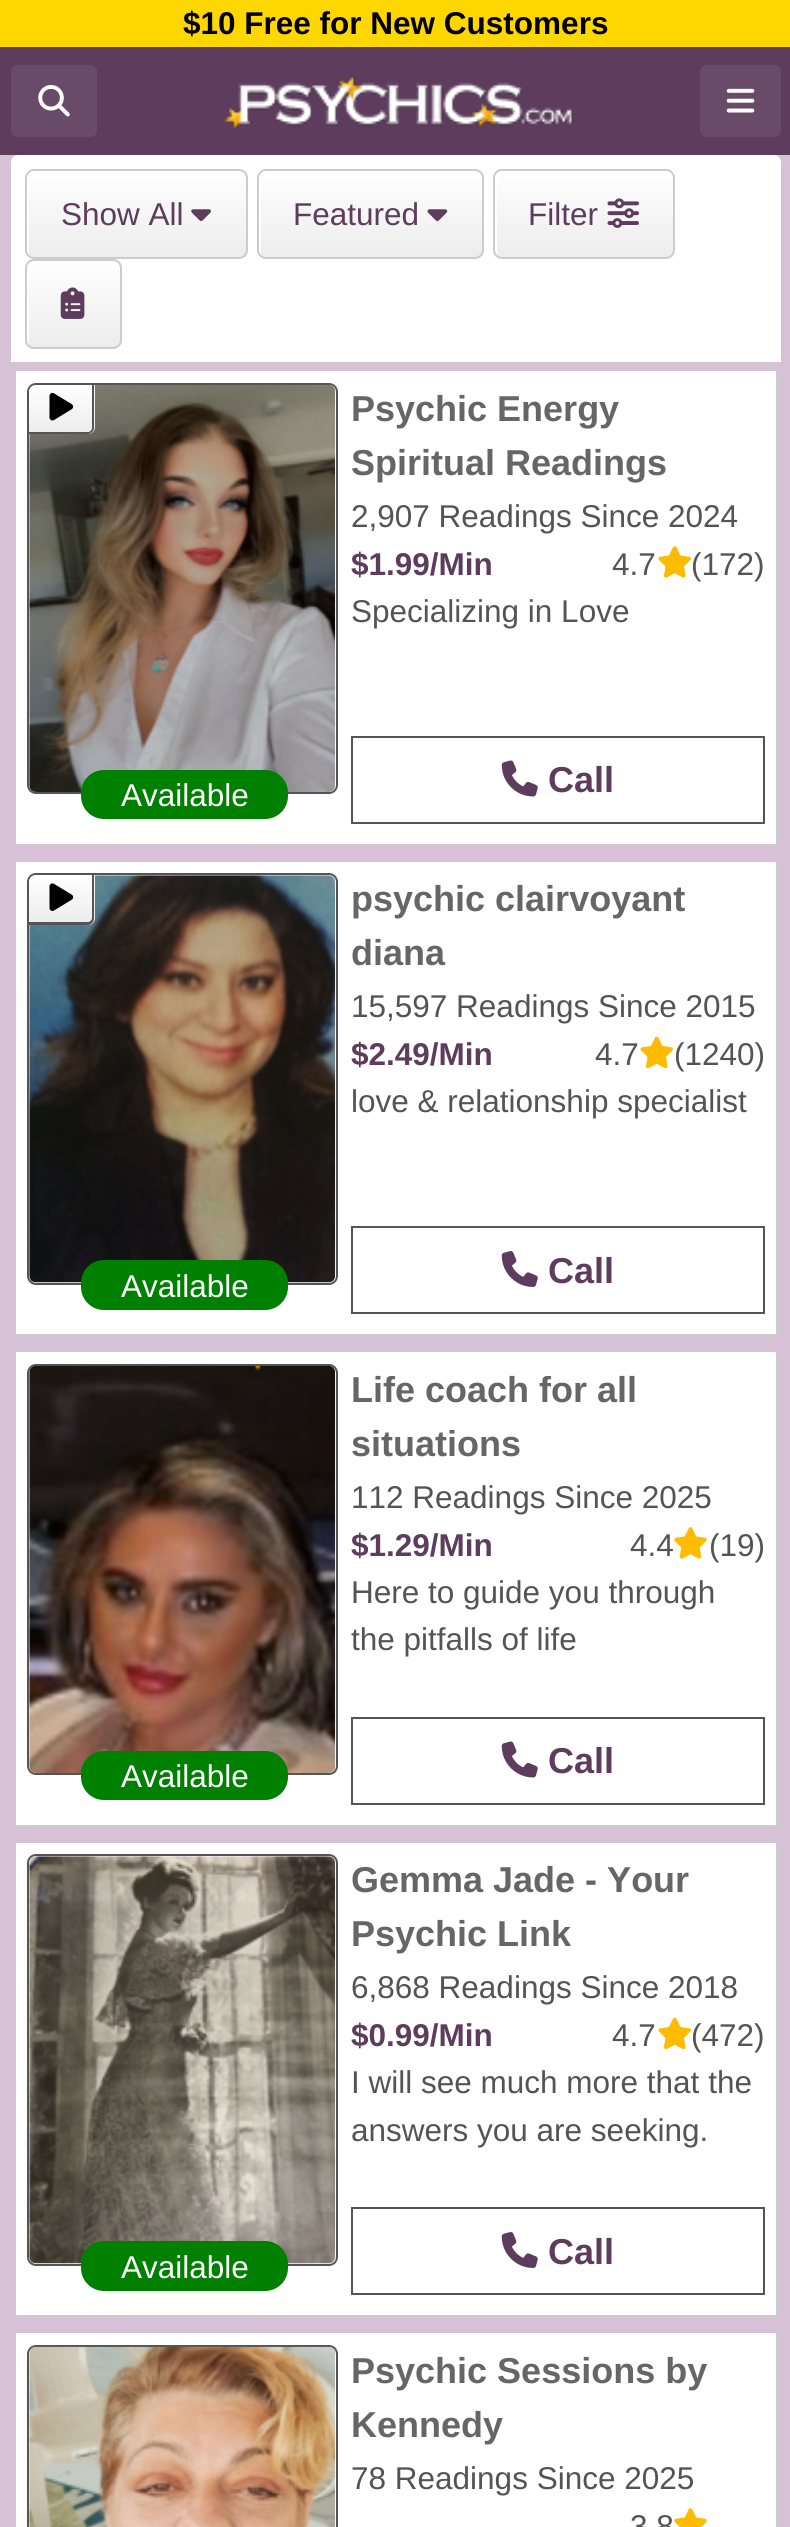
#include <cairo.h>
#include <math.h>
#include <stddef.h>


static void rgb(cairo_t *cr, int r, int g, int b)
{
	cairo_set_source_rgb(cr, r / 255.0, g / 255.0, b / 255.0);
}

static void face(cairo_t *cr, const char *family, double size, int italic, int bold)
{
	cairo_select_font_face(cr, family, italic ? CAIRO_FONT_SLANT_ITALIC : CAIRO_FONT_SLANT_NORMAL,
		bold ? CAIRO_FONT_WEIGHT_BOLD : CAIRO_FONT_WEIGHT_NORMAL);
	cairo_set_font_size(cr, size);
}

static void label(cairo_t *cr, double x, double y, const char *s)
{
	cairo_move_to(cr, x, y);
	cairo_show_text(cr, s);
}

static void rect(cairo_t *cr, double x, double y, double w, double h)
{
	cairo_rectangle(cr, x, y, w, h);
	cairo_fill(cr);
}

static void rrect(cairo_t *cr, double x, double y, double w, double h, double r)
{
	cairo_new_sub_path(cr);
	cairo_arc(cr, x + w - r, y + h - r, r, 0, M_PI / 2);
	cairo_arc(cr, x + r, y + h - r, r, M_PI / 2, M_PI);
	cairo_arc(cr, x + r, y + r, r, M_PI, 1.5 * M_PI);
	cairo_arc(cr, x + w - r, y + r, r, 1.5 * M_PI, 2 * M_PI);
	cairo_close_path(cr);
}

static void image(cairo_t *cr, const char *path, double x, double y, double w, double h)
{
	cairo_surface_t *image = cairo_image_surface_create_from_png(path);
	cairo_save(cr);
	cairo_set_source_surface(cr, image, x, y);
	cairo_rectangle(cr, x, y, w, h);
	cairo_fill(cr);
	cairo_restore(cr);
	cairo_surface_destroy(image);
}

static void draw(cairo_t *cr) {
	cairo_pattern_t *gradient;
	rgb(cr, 215, 193, 215);
	cairo_paint(cr);
	rgb(cr, 93, 60, 93);
	rect(cr, 0, 47, 790, 108);
	rgb(cr, 255, 215, 0);
	rect(cr, 0, 0, 790, 47);
	face(cr, "Liberation Sans", 31.5, 0, 1);
	rgb(cr, 0, 0, 0);
	label(cr, 183, 34, "$10 Free for New Customers");
	rgb(cr, 105, 75, 105);
	rrect(cr, 11, 65, 86, 72, 7);
	cairo_fill(cr);
	image(cr, "image0.png", 38, 84, 32, 33);
	image(cr, "image1.png", 222, 76, 352, 55);
	rrect(cr, 700, 65, 81, 72, 7);
	cairo_fill(cr);
	image(cr, "image2.png", 726, 88, 29, 25);
	rgb(cr, 255, 255, 255);
	cairo_new_path(cr);
	cairo_move_to(cr, 18, 155);
	cairo_line_to(cr, 774, 155);
	cairo_curve_to(cr, 778, 155, 781, 158, 781, 162);
	cairo_line_to(cr, 781, 362);
	cairo_line_to(cr, 11, 362);
	cairo_line_to(cr, 11, 162);
	cairo_curve_to(cr, 11, 158, 14, 155, 18, 155);
	cairo_close_path(cr);
	cairo_fill(cr);
	cairo_save(cr);
	rrect(cr, 25, 169, 223, 90, 9);
	cairo_clip(cr);
	gradient = cairo_pattern_create_linear(136, 171, 136, 257);
	cairo_pattern_add_color_stop_rgba(gradient, 0, 1, 1, 1, 1);
	cairo_pattern_add_color_stop_rgba(gradient, 0.47, 0.965, 0.965, 0.965, 1);
	cairo_pattern_add_color_stop_rgba(gradient, 1, 0.929, 0.929, 0.929, 1);
	cairo_set_source(cr, gradient);
	cairo_pattern_destroy(gradient);
	rect(cr, 25, 171, 223, 86);
	cairo_restore(cr);
	cairo_new_path(cr);
	cairo_move_to(cr, 36, 173);
	cairo_line_to(cr, 241, 173);
	cairo_line_to(cr, 243, 174);
	cairo_curve_to(cr, 242, 172, 240, 171, 238, 171);
	cairo_line_to(cr, 34, 171);
	cairo_curve_to(cr, 30, 171, 27, 174, 27, 178);
	cairo_line_to(cr, 27, 250);
	cairo_curve_to(cr, 27, 252, 28, 255, 30, 256);
	cairo_curve_to(cr, 29, 255, 29, 253, 29, 252);
	cairo_line_to(cr, 29, 180);
	cairo_curve_to(cr, 29, 176, 32, 173, 36, 173);
	cairo_close_path(cr);
	cairo_fill(cr);
	rrect(cr, 26, 170, 221, 88, 8);
	rgb(cr, 204, 204, 204);
	cairo_stroke(cr);
	face(cr, "Liberation Sans", 31.5, 0, 0);
	rgb(cr, 93, 60, 93);
	label(cr, 61, 225, "Show All");
	image(cr, "image3.png", 191, 209, 20, 12);
	cairo_save(cr);
	rrect(cr, 257, 169, 227, 90, 9);
	cairo_clip(cr);
	gradient = cairo_pattern_create_linear(370, 171, 370, 257);
	cairo_pattern_add_color_stop_rgba(gradient, 0, 1, 1, 1, 1);
	cairo_pattern_add_color_stop_rgba(gradient, 0.47, 0.965, 0.965, 0.965, 1);
	cairo_pattern_add_color_stop_rgba(gradient, 1, 0.929, 0.929, 0.929, 1);
	cairo_set_source(cr, gradient);
	cairo_pattern_destroy(gradient);
	rect(cr, 257, 171, 227, 86);
	cairo_restore(cr);
	rgb(cr, 255, 255, 255);
	cairo_new_path(cr);
	cairo_move_to(cr, 268, 173);
	cairo_line_to(cr, 477, 173);
	cairo_curve_to(cr, 478, 173, 480, 173, 481, 174);
	cairo_curve_to(cr, 480, 172, 477, 171, 475, 171);
	cairo_line_to(cr, 266, 171);
	cairo_curve_to(cr, 262, 171, 259, 174, 259, 178);
	cairo_line_to(cr, 259, 250);
	cairo_curve_to(cr, 259, 252, 260, 255, 262, 256);
	cairo_curve_to(cr, 261, 255, 261, 253, 261, 252);
	cairo_line_to(cr, 261, 180);
	cairo_curve_to(cr, 261, 176, 264, 173, 268, 173);
	cairo_close_path(cr);
	cairo_fill(cr);
	rrect(cr, 258, 170, 225, 88, 8);
	rgb(cr, 204, 204, 204);
	cairo_stroke(cr);
	rgb(cr, 93, 60, 93);
	label(cr, 293, 225, "Featured");
	image(cr, "image4.png", 427, 209, 21, 12);
	cairo_save(cr);
	rrect(cr, 493, 169, 182, 90, 9);
	cairo_clip(cr);
	gradient = cairo_pattern_create_linear(584, 171, 584, 257);
	cairo_pattern_add_color_stop_rgba(gradient, 0, 1, 1, 1, 1);
	cairo_pattern_add_color_stop_rgba(gradient, 0.47, 0.965, 0.965, 0.965, 1);
	cairo_pattern_add_color_stop_rgba(gradient, 1, 0.929, 0.929, 0.929, 1);
	cairo_set_source(cr, gradient);
	cairo_pattern_destroy(gradient);
	rect(cr, 493, 171, 182, 86);
	cairo_restore(cr);
	rgb(cr, 255, 255, 255);
	cairo_new_path(cr);
	cairo_move_to(cr, 504, 173);
	cairo_line_to(cr, 668, 173);
	cairo_curve_to(cr, 669, 173, 671, 173, 672, 174);
	cairo_curve_to(cr, 671, 172, 668, 171, 666, 171);
	cairo_line_to(cr, 502, 171);
	cairo_curve_to(cr, 498, 171, 495, 174, 495, 178);
	cairo_line_to(cr, 495, 250);
	cairo_curve_to(cr, 495, 252, 496, 255, 498, 256);
	cairo_curve_to(cr, 497, 255, 497, 253, 497, 252);
	cairo_line_to(cr, 497, 180);
	cairo_curve_to(cr, 497, 176, 500, 173, 504, 173);
	cairo_close_path(cr);
	cairo_fill(cr);
	rrect(cr, 494, 170, 180, 88, 8);
	rgb(cr, 204, 204, 204);
	cairo_stroke(cr);
	rgb(cr, 93, 60, 93);
	label(cr, 528, 225, "Filter");
	image(cr, "image5.png", 607, 198, 32, 30);
	cairo_save(cr);
	rrect(cr, 25, 259, 97, 90, 9);
	cairo_clip(cr);
	gradient = cairo_pattern_create_linear(73, 261, 73, 347);
	cairo_pattern_add_color_stop_rgba(gradient, 0, 1, 1, 1, 1);
	cairo_pattern_add_color_stop_rgba(gradient, 0.47, 0.965, 0.965, 0.965, 1);
	cairo_pattern_add_color_stop_rgba(gradient, 1, 0.929, 0.929, 0.929, 1);
	cairo_set_source(cr, gradient);
	cairo_pattern_destroy(gradient);
	rect(cr, 25, 261, 97, 86);
	cairo_restore(cr);
	rgb(cr, 255, 255, 255);
	cairo_new_path(cr);
	cairo_move_to(cr, 36, 263);
	cairo_line_to(cr, 115, 263);
	cairo_line_to(cr, 117, 264);
	cairo_curve_to(cr, 116, 262, 114, 261, 112, 261);
	cairo_line_to(cr, 34, 261);
	cairo_curve_to(cr, 30, 261, 27, 264, 27, 268);
	cairo_line_to(cr, 27, 340);
	cairo_curve_to(cr, 27, 342, 28, 345, 30, 346);
	cairo_curve_to(cr, 29, 345, 29, 343, 29, 342);
	cairo_line_to(cr, 29, 270);
	cairo_curve_to(cr, 29, 266, 32, 263, 36, 263);
	cairo_close_path(cr);
	cairo_fill(cr);
	rrect(cr, 26, 260, 95, 88, 8);
	rgb(cr, 204, 204, 204);
	cairo_stroke(cr);
	image(cr, "image6.png", 60, 287, 25, 32);
	cairo_new_path(cr);
	cairo_move_to(cr, 18, 844);
	cairo_line_to(cr, 18, 846);
	cairo_line_to(cr, 779, 846);
	cairo_line_to(cr, 779, 374);
	cairo_line_to(cr, 776, 374);
	cairo_line_to(cr, 776, 844);
	cairo_close_path(cr);
	cairo_fill(cr);
	rgb(cr, 255, 255, 255);
	rect(cr, 16, 371, 760, 473);
	rrect(cr, 28, 384, 309, 409, 8);
	rgb(cr, 85, 85, 85);
	cairo_stroke(cr);
	image(cr, "image7.png", 29, 385, 307, 407);
	cairo_save(cr);
	cairo_new_path(cr);
	cairo_move_to(cr, 36, 385);
	cairo_line_to(cr, 95, 385);
	cairo_line_to(cr, 95, 427);
	cairo_curve_to(cr, 95, 431, 92, 434, 88, 434);
	cairo_line_to(cr, 29, 434);
	cairo_line_to(cr, 29, 392);
	cairo_curve_to(cr, 29, 388, 32, 385, 36, 385);
	cairo_close_path(cr);
	cairo_clip(cr);
	gradient = cairo_pattern_create_linear(61, 385, 61, 432);
	cairo_pattern_add_color_stop_rgba(gradient, 0, 1, 1, 1, 1);
	cairo_pattern_add_color_stop_rgba(gradient, 0.47, 0.965, 0.965, 0.965, 1);
	cairo_pattern_add_color_stop_rgba(gradient, 1, 0.929, 0.929, 0.929, 1);
	cairo_set_source(cr, gradient);
	cairo_pattern_destroy(gradient);
	cairo_new_path(cr);
	cairo_move_to(cr, 36, 385);
	cairo_line_to(cr, 95, 385);
	cairo_line_to(cr, 95, 432);
	cairo_line_to(cr, 29, 432);
	cairo_line_to(cr, 29, 392);
	cairo_curve_to(cr, 29, 388, 32, 385, 36, 385);
	cairo_close_path(cr);
	cairo_fill(cr);
	gradient = cairo_pattern_create_linear(61, 432, 61, 479);
	cairo_pattern_add_color_stop_rgba(gradient, 0, 1, 1, 1, 1);
	cairo_pattern_add_color_stop_rgba(gradient, 0.47, 0.965, 0.965, 0.965, 1);
	cairo_pattern_add_color_stop_rgba(gradient, 1, 0.929, 0.929, 0.929, 1);
	cairo_set_source(cr, gradient);
	cairo_pattern_destroy(gradient);
	rect(cr, 88, 432, 7, 2);
	cairo_restore(cr);
	cairo_set_fill_rule(cr, CAIRO_FILL_RULE_EVEN_ODD);
	cairo_new_path(cr);
	cairo_move_to(cr, 36, 385);
	cairo_line_to(cr, 94, 385);
	cairo_line_to(cr, 94, 428);
	cairo_curve_to(cr, 94, 431, 91, 434, 88, 434);
	cairo_line_to(cr, 29, 434);
	cairo_line_to(cr, 29, 392);
	cairo_curve_to(cr, 29, 388, 32, 385, 36, 385);
	cairo_close_path(cr);
	cairo_move_to(cr, 36, 385);
	cairo_line_to(cr, 92, 385);
	cairo_line_to(cr, 92, 428);
	cairo_curve_to(cr, 92, 430, 90, 432, 88, 432);
	cairo_line_to(cr, 29, 432);
	cairo_line_to(cr, 29, 392);
	cairo_curve_to(cr, 29, 388, 32, 385, 36, 385);
	cairo_close_path(cr);
	cairo_fill(cr);
	image(cr, "image8.png", 49, 392, 25, 29);
	rgb(cr, 0, 128, 0);
	rrect(cr, 81, 770, 207, 49, 23);
	cairo_fill(cr);
	rgb(cr, 255, 255, 255);
	label(cr, 121, 806, "Available");
	face(cr, "Liberation Sans", 36, 0, 1);
	rgb(cr, 102, 102, 102);
	label(cr, 351, 421, "Psychic Energy");
	label(cr, 351, 475, "Spiritual Readings");
	face(cr, "Liberation Sans", 31.5, 0, 0);
	rgb(cr, 84, 84, 84);
	label(cr, 351, 527, "2,907 Readings Since 2024");
	face(cr, "Liberation Sans", 31.5, 0, 1);
	rgb(cr, 93, 60, 93);
	label(cr, 351, 575, "$1.99/Min");
	face(cr, "Liberation Sans", 31.5, 0, 0);
	rgb(cr, 84, 84, 84);
	label(cr, 612, 575, "4.7");
	image(cr, "image9.png", 658, 546, 33, 32);
	label(cr, 691, 575, "(172)");
	label(cr, 351, 622, "Specializing in Love");
	cairo_rectangle(cr, 352, 737, 412, 86);
	rgb(cr, 85, 85, 85);
	cairo_stroke(cr);
	image(cr, "image10.png", 501, 760, 37, 37);
	face(cr, "Liberation Sans", 36, 0, 1);
	rgb(cr, 93, 60, 93);
	label(cr, 548, 792, "Call");
	rgb(cr, 204, 204, 204);
	cairo_set_fill_rule(cr, CAIRO_FILL_RULE_WINDING);
	cairo_new_path(cr);
	cairo_move_to(cr, 18, 1334);
	cairo_line_to(cr, 18, 1337);
	cairo_line_to(cr, 779, 1337);
	cairo_line_to(cr, 779, 864);
	cairo_line_to(cr, 776, 864);
	cairo_line_to(cr, 776, 1334);
	cairo_close_path(cr);
	cairo_fill(cr);
	rgb(cr, 255, 255, 255);
	rect(cr, 16, 862, 760, 472);
	rrect(cr, 28, 874, 309, 410, 8);
	rgb(cr, 85, 85, 85);
	cairo_stroke(cr);
	image(cr, "image11.png", 29, 875, 307, 408);
	cairo_save(cr);
	cairo_new_path(cr);
	cairo_move_to(cr, 36, 875);
	cairo_line_to(cr, 95, 875);
	cairo_line_to(cr, 95, 918);
	cairo_curve_to(cr, 95, 922, 92, 925, 88, 925);
	cairo_line_to(cr, 29, 925);
	cairo_line_to(cr, 29, 882);
	cairo_curve_to(cr, 29, 878, 32, 875, 36, 875);
	cairo_close_path(cr);
	cairo_clip(cr);
	gradient = cairo_pattern_create_linear(61, 875, 61, 923);
	cairo_pattern_add_color_stop_rgba(gradient, 0, 1, 1, 1, 1);
	cairo_pattern_add_color_stop_rgba(gradient, 0.47, 0.965, 0.965, 0.965, 1);
	cairo_pattern_add_color_stop_rgba(gradient, 1, 0.929, 0.929, 0.929, 1);
	cairo_set_source(cr, gradient);
	cairo_pattern_destroy(gradient);
	cairo_new_path(cr);
	cairo_move_to(cr, 36, 875);
	cairo_line_to(cr, 95, 875);
	cairo_line_to(cr, 95, 923);
	cairo_line_to(cr, 29, 923);
	cairo_line_to(cr, 29, 882);
	cairo_curve_to(cr, 29, 878, 32, 875, 36, 875);
	cairo_close_path(cr);
	cairo_fill(cr);
	gradient = cairo_pattern_create_linear(61, 923, 61, 970);
	cairo_pattern_add_color_stop_rgba(gradient, 0, 1, 1, 1, 1);
	cairo_pattern_add_color_stop_rgba(gradient, 0.47, 0.965, 0.965, 0.965, 1);
	cairo_pattern_add_color_stop_rgba(gradient, 1, 0.929, 0.929, 0.929, 1);
	cairo_set_source(cr, gradient);
	cairo_pattern_destroy(gradient);
	rect(cr, 88, 923, 7, 2);
	cairo_restore(cr);
	cairo_set_fill_rule(cr, CAIRO_FILL_RULE_EVEN_ODD);
	cairo_new_path(cr);
	cairo_move_to(cr, 36, 875);
	cairo_line_to(cr, 94, 875);
	cairo_line_to(cr, 94, 918);
	cairo_curve_to(cr, 94, 922, 91, 925, 88, 925);
	cairo_line_to(cr, 29, 925);
	cairo_line_to(cr, 29, 882);
	cairo_curve_to(cr, 29, 878, 32, 875, 36, 875);
	cairo_close_path(cr);
	cairo_move_to(cr, 36, 875);
	cairo_line_to(cr, 92, 875);
	cairo_line_to(cr, 92, 918);
	cairo_curve_to(cr, 92, 920, 90, 922, 88, 922);
	cairo_line_to(cr, 29, 922);
	cairo_line_to(cr, 29, 882);
	cairo_curve_to(cr, 29, 878, 32, 875, 36, 875);
	cairo_close_path(cr);
	cairo_fill(cr);
	image(cr, "image12.png", 49, 883, 25, 28);
	rgb(cr, 0, 128, 0);
	rrect(cr, 81, 1260, 207, 50, 23);
	cairo_fill(cr);
	face(cr, "Liberation Sans", 31.5, 0, 0);
	rgb(cr, 255, 255, 255);
	label(cr, 121, 1297, "Available");
	face(cr, "Liberation Sans", 36, 0, 1);
	rgb(cr, 102, 102, 102);
	label(cr, 351, 911, "psychic clairvoyant");
	label(cr, 351, 965, "diana");
	face(cr, "Liberation Sans", 31.5, 0, 0);
	rgb(cr, 84, 84, 84);
	label(cr, 351, 1017, "15,597 Readings Since 2015");
	face(cr, "Liberation Sans", 31.5, 0, 1);
	rgb(cr, 93, 60, 93);
	label(cr, 351, 1065, "$2.49/Min");
	face(cr, "Liberation Sans", 31.5, 0, 0);
	rgb(cr, 84, 84, 84);
	label(cr, 595, 1065, "4.7");
	image(cr, "image13.png", 640, 1036, 33, 33);
	label(cr, 674, 1065, "(1240)");
	label(cr, 351, 1112, "love & relationship specialist");
	cairo_rectangle(cr, 352, 1227, 412, 86);
	rgb(cr, 85, 85, 85);
	cairo_stroke(cr);
	image(cr, "image14.png", 501, 1251, 37, 36);
	face(cr, "Liberation Sans", 36, 0, 1);
	rgb(cr, 93, 60, 93);
	label(cr, 548, 1283, "Call");
	rgb(cr, 204, 204, 204);
	cairo_set_fill_rule(cr, CAIRO_FILL_RULE_WINDING);
	cairo_new_path(cr);
	cairo_move_to(cr, 18, 1825);
	cairo_line_to(cr, 18, 1827);
	cairo_line_to(cr, 779, 1827);
	cairo_line_to(cr, 779, 1355);
	cairo_line_to(cr, 776, 1355);
	cairo_line_to(cr, 776, 1825);
	cairo_close_path(cr);
	cairo_fill(cr);
	rgb(cr, 255, 255, 255);
	rect(cr, 16, 1352, 760, 473);
	rrect(cr, 28, 1365, 309, 409, 8);
	rgb(cr, 85, 85, 85);
	cairo_stroke(cr);
	image(cr, "image15.png", 29, 1365, 307, 408);
	rgb(cr, 0, 128, 0);
	rrect(cr, 81, 1751, 207, 49, 23);
	cairo_fill(cr);
	face(cr, "Liberation Sans", 31.5, 0, 0);
	rgb(cr, 255, 255, 255);
	label(cr, 121, 1787, "Available");
	face(cr, "Liberation Sans", 36, 0, 1);
	rgb(cr, 102, 102, 102);
	label(cr, 351, 1402, "Life coach for all");
	label(cr, 351, 1456, "situations");
	face(cr, "Liberation Sans", 31.5, 0, 0);
	rgb(cr, 84, 84, 84);
	label(cr, 351, 1508, "112 Readings Since 2025");
	face(cr, "Liberation Sans", 31.5, 0, 1);
	rgb(cr, 93, 60, 93);
	label(cr, 351, 1556, "$1.29/Min");
	face(cr, "Liberation Sans", 31.5, 0, 0);
	rgb(cr, 84, 84, 84);
	label(cr, 630, 1556, "4.4");
	image(cr, "image16.png", 674, 1527, 33, 32);
	label(cr, 709, 1556, "(19)");
	label(cr, 351, 1603, "Here to guide you through");
	label(cr, 351, 1650, "the pitfalls of life");
	cairo_rectangle(cr, 352, 1718, 412, 86);
	rgb(cr, 85, 85, 85);
	cairo_stroke(cr);
	image(cr, "image10.png", 501, 1741, 37, 37);
	face(cr, "Liberation Sans", 36, 0, 1);
	rgb(cr, 93, 60, 93);
	label(cr, 548, 1773, "Call");
	rgb(cr, 204, 204, 204);
	cairo_new_path(cr);
	cairo_move_to(cr, 18, 2315);
	cairo_line_to(cr, 18, 2318);
	cairo_line_to(cr, 779, 2318);
	cairo_line_to(cr, 779, 1845);
	cairo_line_to(cr, 776, 1845);
	cairo_line_to(cr, 776, 2315);
	cairo_close_path(cr);
	cairo_fill(cr);
	rgb(cr, 255, 255, 255);
	rect(cr, 16, 1843, 760, 472);
	rrect(cr, 28, 1855, 309, 410, 8);
	rgb(cr, 85, 85, 85);
	cairo_stroke(cr);
	image(cr, "image17.png", 29, 1856, 307, 408);
	rgb(cr, 0, 128, 0);
	rrect(cr, 81, 2241, 207, 50, 23);
	cairo_fill(cr);
	face(cr, "Liberation Sans", 31.5, 0, 0);
	rgb(cr, 255, 255, 255);
	label(cr, 121, 2278, "Available");
	face(cr, "Liberation Sans", 36, 0, 1);
	rgb(cr, 102, 102, 102);
	label(cr, 351, 1892, "Gemma Jade - Your");
	label(cr, 351, 1946, "Psychic Link");
	face(cr, "Liberation Sans", 31.5, 0, 0);
	rgb(cr, 84, 84, 84);
	label(cr, 351, 1998, "6,868 Readings Since 2018");
	face(cr, "Liberation Sans", 31.5, 0, 1);
	rgb(cr, 93, 60, 93);
	label(cr, 351, 2046, "$0.99/Min");
	face(cr, "Liberation Sans", 31.5, 0, 0);
	rgb(cr, 84, 84, 84);
	label(cr, 612, 2046, "4.7");
	image(cr, "image13.png", 658, 2017, 33, 33);
	label(cr, 691, 2046, "(472)");
	label(cr, 351, 2093, "I will see much more that the");
	label(cr, 351, 2141, "answers you are seeking.");
	cairo_rectangle(cr, 352, 2208, 412, 86);
	rgb(cr, 85, 85, 85);
	cairo_stroke(cr);
	image(cr, "image14.png", 501, 2232, 37, 36);
	face(cr, "Liberation Sans", 36, 0, 1);
	rgb(cr, 93, 60, 93);
	label(cr, 548, 2264, "Call");
	rgb(cr, 204, 204, 204);
	cairo_new_path(cr);
	cairo_move_to(cr, 18, 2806);
	cairo_line_to(cr, 18, 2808);
	cairo_line_to(cr, 779, 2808);
	cairo_line_to(cr, 779, 2336);
	cairo_line_to(cr, 776, 2336);
	cairo_line_to(cr, 776, 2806);
	cairo_close_path(cr);
	cairo_fill(cr);
	rgb(cr, 255, 255, 255);
	rect(cr, 16, 2333, 760, 194);
	rrect(cr, 28, 2346, 309, 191, 8);
	rgb(cr, 85, 85, 85);
	cairo_stroke(cr);
	image(cr, "image18.png", 29, 2346, 307, 181);
	rgb(cr, 102, 102, 102);
	label(cr, 351, 2383, "Psychic Sessions by");
	label(cr, 351, 2437, "Kennedy");
	face(cr, "Liberation Sans", 31.5, 0, 0);
	rgb(cr, 84, 84, 84);
	label(cr, 351, 2489, "78 Readings Since 2025");
	label(cr, 630, 2537, "3.8");
	image(cr, "image19.png", 674, 2508, 33, 19);
}

int main(void) {
	cairo_surface_t *surface = cairo_image_surface_create(CAIRO_FORMAT_RGB24, 790, 2527);
	cairo_t *cr = cairo_create(surface);
	cairo_font_options_t *options = cairo_font_options_create();
	cairo_font_options_set_hint_metrics(options, CAIRO_HINT_METRICS_OFF);
	cairo_font_options_set_hint_style(options, CAIRO_HINT_STYLE_NONE);
	cairo_set_font_options(cr, options);
	cairo_set_miter_limit(cr, 4);
	draw(cr);
	cairo_surface_write_to_png(surface, "render.png");
	cairo_font_options_destroy(options);
	cairo_destroy(cr);
	cairo_surface_destroy(surface);
	return 0;
}
